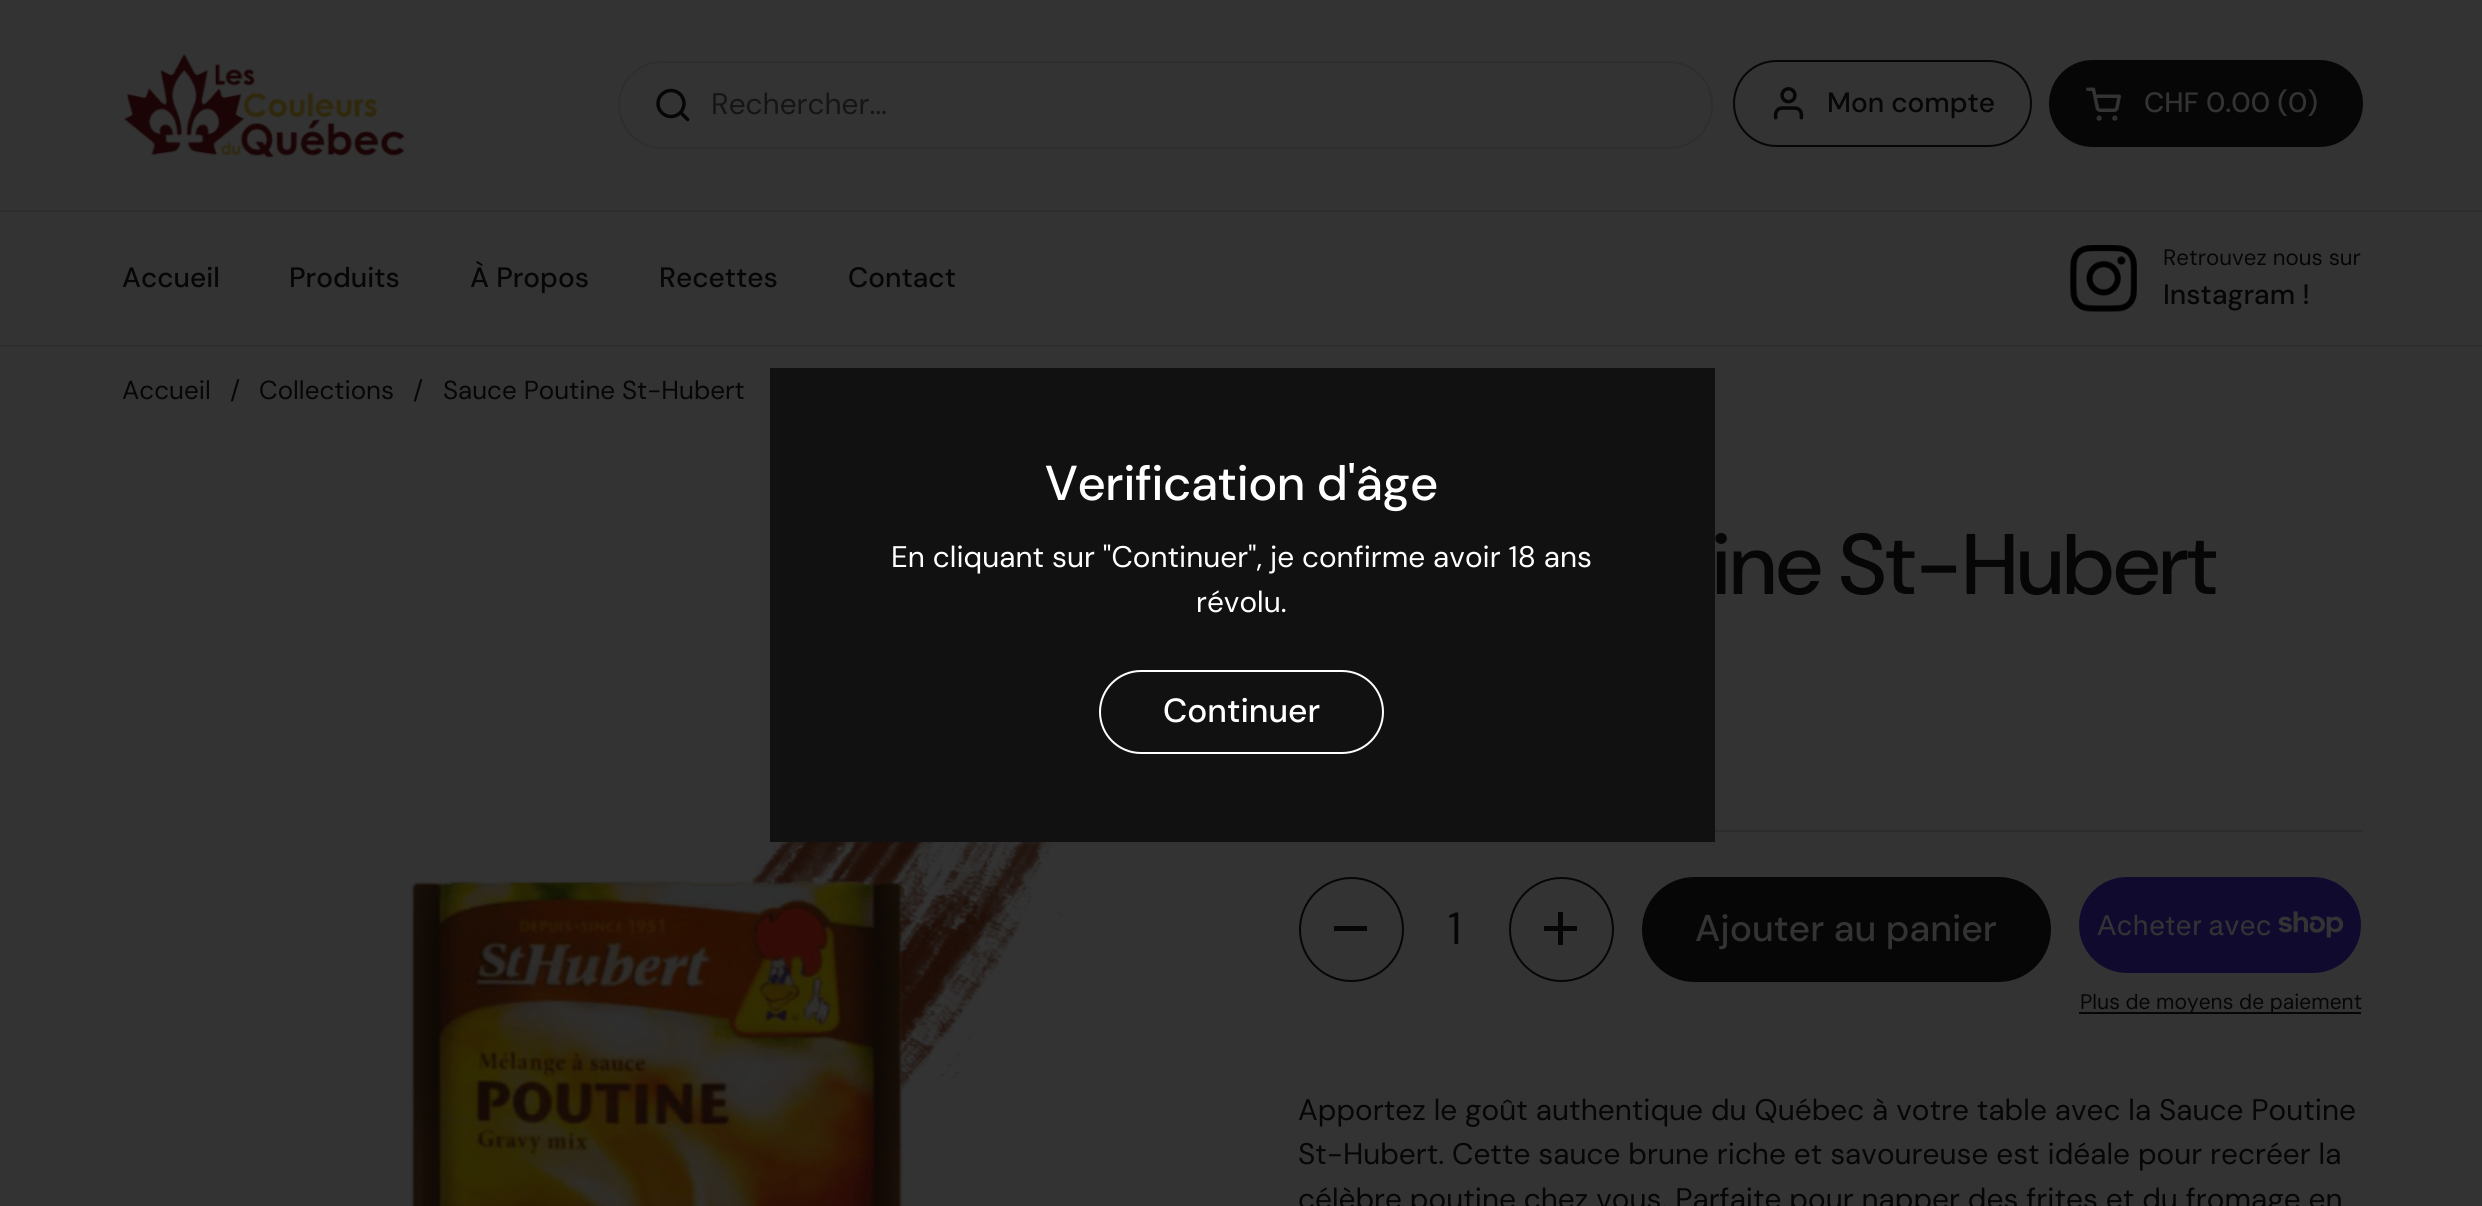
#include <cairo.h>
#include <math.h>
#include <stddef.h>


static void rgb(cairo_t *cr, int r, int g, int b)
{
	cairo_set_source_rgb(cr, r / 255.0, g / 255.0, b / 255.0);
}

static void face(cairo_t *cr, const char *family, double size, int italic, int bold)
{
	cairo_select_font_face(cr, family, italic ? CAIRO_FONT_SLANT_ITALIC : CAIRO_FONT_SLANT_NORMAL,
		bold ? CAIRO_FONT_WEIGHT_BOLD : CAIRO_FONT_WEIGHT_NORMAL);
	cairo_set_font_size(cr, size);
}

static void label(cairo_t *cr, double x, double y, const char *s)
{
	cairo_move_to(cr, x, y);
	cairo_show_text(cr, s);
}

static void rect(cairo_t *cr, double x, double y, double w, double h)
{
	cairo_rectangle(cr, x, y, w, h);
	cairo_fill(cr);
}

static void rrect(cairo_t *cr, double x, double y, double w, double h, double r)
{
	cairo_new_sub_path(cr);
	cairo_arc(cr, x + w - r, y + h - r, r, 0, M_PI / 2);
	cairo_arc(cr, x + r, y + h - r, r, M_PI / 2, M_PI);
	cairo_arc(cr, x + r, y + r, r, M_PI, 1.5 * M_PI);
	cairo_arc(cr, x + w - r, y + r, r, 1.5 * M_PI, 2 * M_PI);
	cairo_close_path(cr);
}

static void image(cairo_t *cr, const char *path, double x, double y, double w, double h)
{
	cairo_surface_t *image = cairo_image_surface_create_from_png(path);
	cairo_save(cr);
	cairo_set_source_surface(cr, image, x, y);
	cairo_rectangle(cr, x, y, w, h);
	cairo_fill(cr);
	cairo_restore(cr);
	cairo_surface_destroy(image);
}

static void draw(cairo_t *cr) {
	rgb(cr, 51, 51, 51);
	cairo_paint(cr);
	rgb(cr, 46, 46, 46);
	rect(cr, 0, 210, 2482, 2);
	image(cr, "image0.png", 124, 53, 281, 105);
	rrect(cr, 619, 62, 1093, 86, 43);
	cairo_stroke(cr);
	image(cr, "image1.png", 656, 88, 34, 34);
	face(cr, "DM Sans", 29.75, 0, 0);
	rgb(cr, 21, 21, 21);
	label(cr, 711, 114, "Rechercher...");
	rrect(cr, 1734, 61, 297, 85, 42.5);
	rgb(cr, 6, 6, 6);
	cairo_stroke(cr);
	image(cr, "image2.png", 1773, 87, 31, 33);
	face(cr, "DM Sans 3 Medium", 28, 0, 0);
	label(cr, 1827, 112, "Mon compte");
	rrect(cr, 2050, 61, 312, 85, 42.5);
	cairo_fill_preserve(cr);
	cairo_stroke(cr);
	image(cr, "image3.png", 2086, 87, 35, 34);
	rgb(cr, 51, 51, 51);
	label(cr, 2144, 112, "CHF 0.00 (0)");
	rgb(cr, 46, 46, 46);
	rect(cr, 0, 345, 2482, 2);
	rgb(cr, 6, 6, 6);
	label(cr, 122, 287, "Accueil");
	label(cr, 289, 287, "Produits");
	label(cr, 470, 287, "À Propos");
	label(cr, 659, 287, "Recettes");
	label(cr, 848, 287, "Contact");
	image(cr, "image4.png", 2070, 245, 67, 67);
	face(cr, "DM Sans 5", 22.25, 0, 0);
	label(cr, 2163, 265, "Retrouvez nous sur");
	face(cr, "DM Sans 3 Medium", 28, 0, 0);
	label(cr, 2163, 304, "Instagram !");
	face(cr, "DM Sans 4", 26, 0, 0);
	label(cr, 122, 399, "Accueil");
	label(cr, 230, 399, "/");
	label(cr, 259, 399, "Collections");
	label(cr, 413, 399, "/");
	label(cr, 443, 399, "Sauce Poutine St-Hubert");
	image(cr, "image5.png", 411, 842, 692, 364);
	face(cr, "DM Sans Medium", 85.75, 0, 0);
	label(cr, 1712, 594, "ine St-Hubert");
	rgb(cr, 44, 44, 44);
	rect(cr, 1715, 830, 648, 2);
	cairo_new_path(cr);
	cairo_arc(cr, 1351.5, 929.5, 51.5, 0, 2 * M_PI);
	rgb(cr, 6, 6, 6);
	cairo_stroke(cr);
	rect(cr, 1334, 926, 33, 5);
	face(cr, "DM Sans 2", 45, 0, 0);
	label(cr, 1448, 944, "1");
	cairo_new_path(cr);
	cairo_arc(cr, 1561.5, 929.5, 51.5, 0, 2 * M_PI);
	cairo_stroke(cr);
	rect(cr, 1558, 912, 5, 33);
	rect(cr, 1544, 926, 33, 5);
	rrect(cr, 1643, 878, 407, 103, 51.5);
	cairo_fill_preserve(cr);
	cairo_stroke(cr);
	face(cr, "DM Sans 2 Medium", 37.25, 0, 0);
	rgb(cr, 51, 51, 51);
	label(cr, 1695, 941, "Ajouter au panier");
	rgb(cr, 17, 10, 47);
	rrect(cr, 2079, 877, 282, 96, 48);
	cairo_fill(cr);
	face(cr, "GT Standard", 28, 0, 0);
	rgb(cr, 51, 51, 51);
	label(cr, 2097, 935, "Acheter avec");
	image(cr, "image6.png", 2278, 911, 65, 27);
	rgb(cr, 6, 6, 6);
	rect(cr, 2079, 1012, 282, 2);
	face(cr, "DM Sans 3", 21, 0, 0);
	label(cr, 2080, 1009, "Plus de moyens de paiement");
	face(cr, "DM Sans", 29.75, 0, 0);
	label(cr, 1298, 1120, "Apportez le goût authentique du Québec à votre table avec la Sauce Poutine");
	label(cr, 1298, 1164, "St-Hubert. Cette sauce brune riche et savoureuse est idéale pour recréer la");
	label(cr, 1298, 1209, "célèbre poutine chez vous. Parfaite pour napper des frites et du fromage en");
	rgb(cr, 17, 17, 17);
	rect(cr, 770, 368, 945, 474);
	face(cr, "DM Sans 4 Medium", 49, 0, 0);
	rgb(cr, 255, 255, 255);
	label(cr, 1045, 500, "Verification d'âge");
	face(cr, "DM Sans", 29.75, 0, 0);
	label(cr, 891, 567, "En cliquant sur \"Continuer\", je confirme avoir 18 ans");
	label(cr, 1196, 612, "révolu.");
	rrect(cr, 1100, 671, 283, 82, 41);
	cairo_stroke(cr);
	face(cr, "DM Sans 5 Medium", 33.5, 0, 0);
	label(cr, 1163, 722, "Continuer");
}

int main(void) {
	cairo_surface_t *surface = cairo_image_surface_create(CAIRO_FORMAT_RGB24, 2482, 1206);
	cairo_t *cr = cairo_create(surface);
	cairo_font_options_t *options = cairo_font_options_create();
	cairo_font_options_set_hint_metrics(options, CAIRO_HINT_METRICS_OFF);
	cairo_font_options_set_hint_style(options, CAIRO_HINT_STYLE_NONE);
	cairo_set_font_options(cr, options);
	cairo_set_miter_limit(cr, 4);
	draw(cr);
	cairo_surface_write_to_png(surface, "render.png");
	cairo_font_options_destroy(options);
	cairo_destroy(cr);
	cairo_surface_destroy(surface);
	return 0;
}
